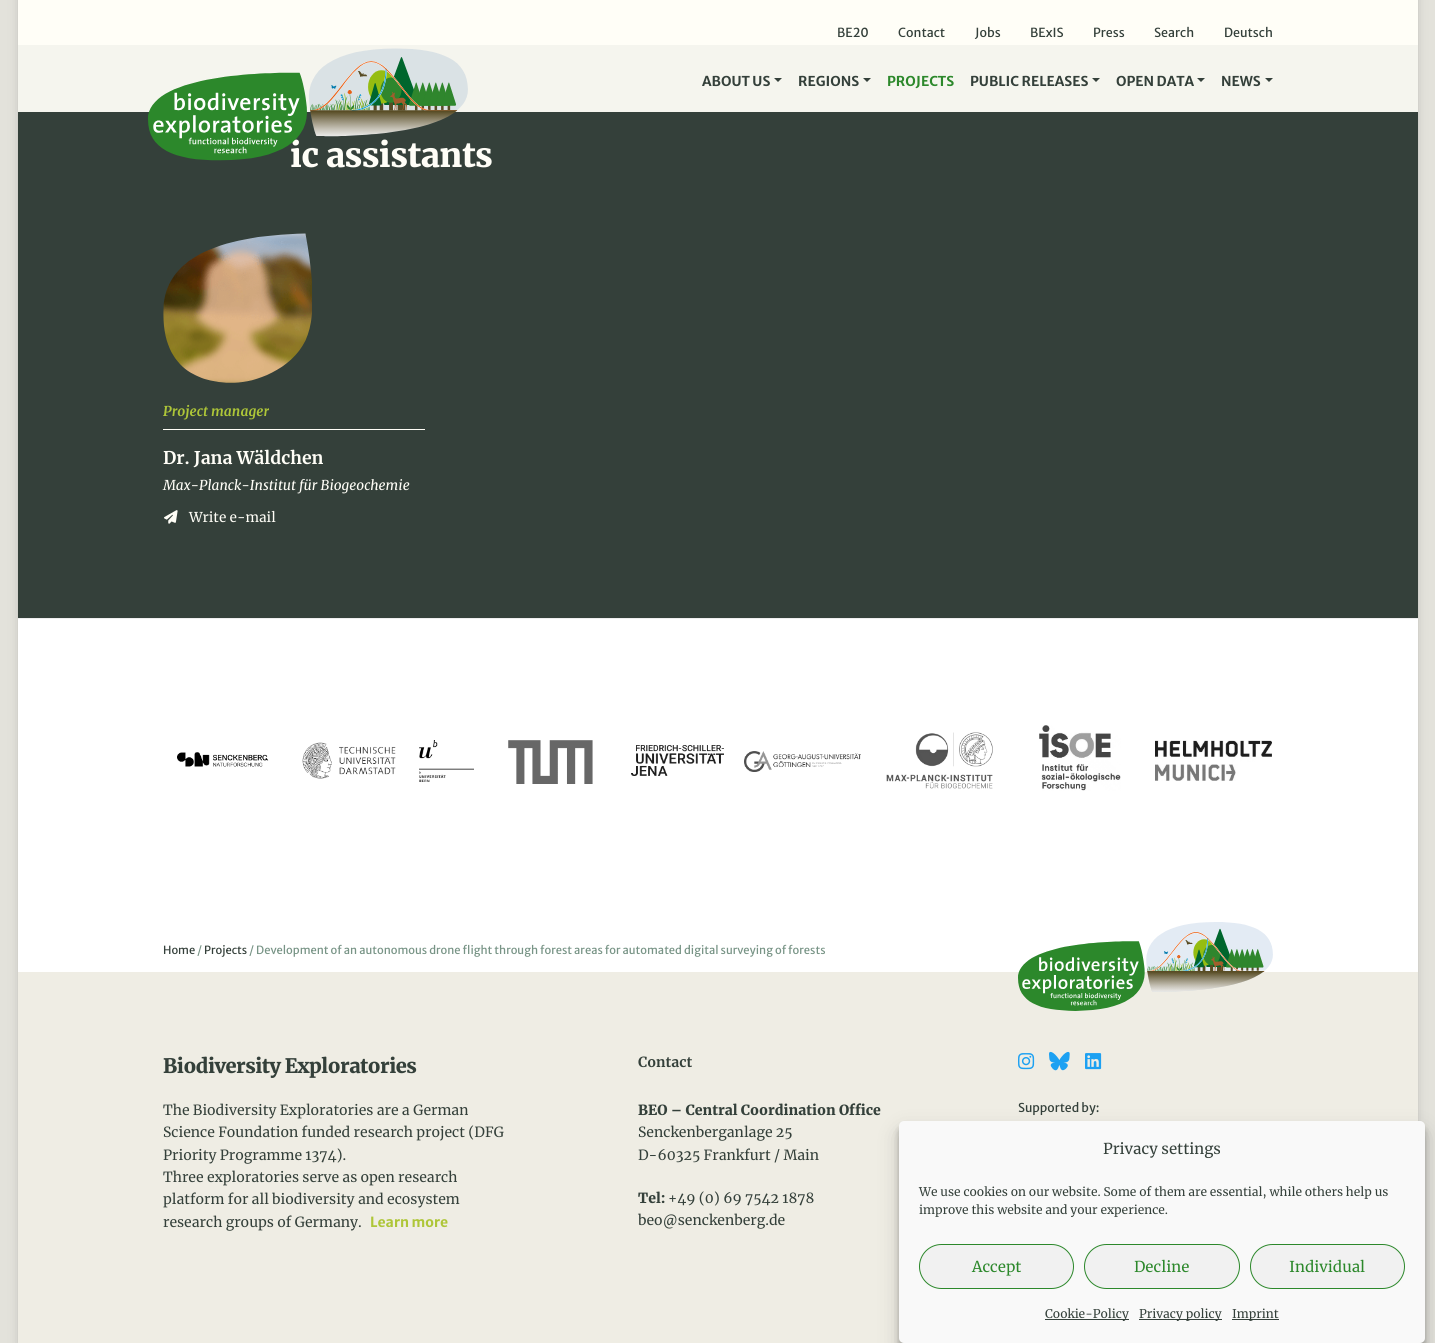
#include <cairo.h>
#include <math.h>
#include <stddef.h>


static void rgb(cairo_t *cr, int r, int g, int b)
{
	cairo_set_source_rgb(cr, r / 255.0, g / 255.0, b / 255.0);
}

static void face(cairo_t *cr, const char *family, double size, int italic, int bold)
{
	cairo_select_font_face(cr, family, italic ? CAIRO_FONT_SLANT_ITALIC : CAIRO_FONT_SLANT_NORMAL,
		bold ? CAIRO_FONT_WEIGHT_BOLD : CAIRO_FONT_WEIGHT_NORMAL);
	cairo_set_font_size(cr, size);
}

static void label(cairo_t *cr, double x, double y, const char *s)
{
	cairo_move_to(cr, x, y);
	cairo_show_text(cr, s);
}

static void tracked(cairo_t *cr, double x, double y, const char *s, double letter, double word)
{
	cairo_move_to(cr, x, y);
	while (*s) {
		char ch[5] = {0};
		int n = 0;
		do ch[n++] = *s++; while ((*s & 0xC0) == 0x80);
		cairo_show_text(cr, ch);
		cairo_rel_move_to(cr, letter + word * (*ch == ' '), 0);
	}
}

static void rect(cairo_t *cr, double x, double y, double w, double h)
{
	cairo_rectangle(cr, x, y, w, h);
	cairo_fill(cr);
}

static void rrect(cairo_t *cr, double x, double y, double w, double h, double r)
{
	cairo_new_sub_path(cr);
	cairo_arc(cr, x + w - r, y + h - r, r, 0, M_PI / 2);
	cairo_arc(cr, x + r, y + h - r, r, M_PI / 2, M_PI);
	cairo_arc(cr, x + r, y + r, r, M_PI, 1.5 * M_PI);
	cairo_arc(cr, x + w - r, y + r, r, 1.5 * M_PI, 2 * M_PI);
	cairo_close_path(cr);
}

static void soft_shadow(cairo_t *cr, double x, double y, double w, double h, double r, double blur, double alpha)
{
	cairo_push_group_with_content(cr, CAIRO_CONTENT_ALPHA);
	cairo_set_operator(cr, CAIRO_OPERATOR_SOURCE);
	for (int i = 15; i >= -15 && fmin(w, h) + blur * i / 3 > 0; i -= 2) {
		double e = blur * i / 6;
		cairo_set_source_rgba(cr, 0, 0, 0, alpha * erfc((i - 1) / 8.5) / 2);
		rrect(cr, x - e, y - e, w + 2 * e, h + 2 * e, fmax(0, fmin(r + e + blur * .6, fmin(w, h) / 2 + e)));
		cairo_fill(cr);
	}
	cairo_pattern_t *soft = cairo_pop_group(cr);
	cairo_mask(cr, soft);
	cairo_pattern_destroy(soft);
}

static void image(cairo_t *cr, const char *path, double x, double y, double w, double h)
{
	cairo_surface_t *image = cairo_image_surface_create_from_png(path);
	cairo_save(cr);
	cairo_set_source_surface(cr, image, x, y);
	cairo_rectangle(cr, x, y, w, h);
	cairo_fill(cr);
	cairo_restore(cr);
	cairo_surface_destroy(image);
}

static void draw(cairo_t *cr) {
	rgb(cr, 227, 226, 219);
	cairo_paint(cr);
	rgb(cr, 0, 0, 0);
	soft_shadow(cr, 26, -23, 1384, 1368, 0, 7.5, 0.5);
	rgb(cr, 255, 254, 247);
	rect(cr, 18, 0, 1400, 45);
	face(cr, "Merriweather Sans", 12.5, 0, 0);
	rgb(cr, 52, 64, 58);
	label(cr, 837, 37, "BE20");
	label(cr, 898, 37, "Contact");
	label(cr, 975, 37, "Jobs");
	label(cr, 1030, 37, "BExIS");
	label(cr, 1093, 37, "Press");
	label(cr, 1154, 37, "Search");
	label(cr, 1224, 37, "Deutsch");
	rect(cr, 18, 112, 1400, 506);
	rgb(cr, 245, 245, 238);
	rect(cr, 18, 45, 1400, 67);
	face(cr, "Merriweather Black", 33.5, 0, 0);
	rgb(cr, 255, 254, 247);
	tracked(cr, 290, 167, "ic assistants", -0.5, 0);
	image(cr, "image0.png", 148, 48, 320, 113);
	face(cr, "Merriweather Sans", 13.6, 0, 1);
	rgb(cr, 52, 64, 58);
	label(cr, 702, 86, "ABOUT US");
	cairo_new_path(cr);
	cairo_move_to(cr, 774, 78);
	cairo_line_to(cr, 782, 78);
	cairo_line_to(cr, 778, 82);
	cairo_close_path(cr);
	cairo_fill(cr);
	label(cr, 798, 86, "REGIONS");
	cairo_new_path(cr);
	cairo_move_to(cr, 863, 78);
	cairo_line_to(cr, 871, 78);
	cairo_line_to(cr, 867, 82);
	cairo_close_path(cr);
	cairo_fill(cr);
	rgb(cr, 44, 136, 43);
	label(cr, 887, 86, "PROJECTS");
	rgb(cr, 52, 64, 58);
	label(cr, 970, 86, "PUBLIC RELEASES");
	cairo_new_path(cr);
	cairo_move_to(cr, 1092, 78);
	cairo_line_to(cr, 1100, 78);
	cairo_line_to(cr, 1096, 82);
	cairo_close_path(cr);
	cairo_fill(cr);
	label(cr, 1116, 86, "OPEN DATA");
	cairo_new_path(cr);
	cairo_move_to(cr, 1197, 78);
	cairo_line_to(cr, 1205, 78);
	cairo_line_to(cr, 1201, 82);
	cairo_close_path(cr);
	cairo_fill(cr);
	label(cr, 1221, 86, "NEWS");
	cairo_new_path(cr);
	cairo_move_to(cr, 1265, 78);
	cairo_line_to(cr, 1273, 78);
	cairo_line_to(cr, 1269, 82);
	cairo_close_path(cr);
	cairo_fill(cr);
	image(cr, "image1.png", 163, 233, 149, 150);
	rgb(cr, 255, 254, 247);
	rect(cr, 163, 429, 262, 1);
	face(cr, "Merriweather", 13.6, 1, 1);
	rgb(cr, 174, 198, 56);
	label(cr, 163, 416, "Project manager");
	face(cr, "Merriweather", 17.5, 0, 1);
	rgb(cr, 255, 254, 247);
	label(cr, 163, 464, "Dr. Jana Wäldchen");
	face(cr, "Merriweather", 13.6, 1, 0);
	label(cr, 163, 490, "Max-Planck-Institut für Biogeochemie");
	image(cr, "image2.png", 164, 510, 14, 14);
	face(cr, "Merriweather", 13.6, 0, 0);
	label(cr, 189, 522, "Write e-mail");
	rgb(cr, 255, 255, 255);
	rect(cr, 18, 619, 1400, 353);
	rgb(cr, 238, 238, 238);
	rect(cr, 18, 618, 1400, 1);
	image(cr, "image3.png", 177, 752, 92, 15);
	image(cr, "image4.png", 302, 742, 94, 37);
	image(cr, "image5.png", 419, 740, 55, 42);
	image(cr, "image6.png", 508, 740, 85, 44);
	image(cr, "image7.png", 631, 745, 93, 31);
	image(cr, "image8.png", 744, 751, 117, 21);
	image(cr, "image9.png", 886, 732, 107, 57);
	image(cr, "image10.png", 1039, 725, 82, 66);
	image(cr, "image11.png", 1155, 740, 117, 41);
	rgb(cr, 239, 237, 228);
	rect(cr, 18, 972, 1400, 371);
	face(cr, "Merriweather Sans", 11.2, 0, 0);
	rgb(cr, 52, 64, 58);
	label(cr, 163, 954, "Home");
	rgb(cr, 120, 148, 134);
	label(cr, 197, 954, "/");
	rgb(cr, 52, 64, 58);
	label(cr, 204, 954, "Projects");
	rgb(cr, 120, 148, 134);
	label(cr, 249, 954, "/ Development of an autonomous drone flight through forest areas for automated digital surveying of forests");
	image(cr, "image12.png", 1018, 922, 255, 89);
	face(cr, "Merriweather Black", 20, 0, 0);
	rgb(cr, 52, 64, 58);
	tracked(cr, 163, 1073, "Biodiversity Exploratories", -0.5, 0);
	face(cr, "Merriweather", 14, 0, 0);
	label(cr, 163, 1115, "The Biodiversity Exploratories are a German");
	label(cr, 163, 1137, "Science Foundation funded research project (DFG");
	label(cr, 163, 1160, "Priority Programme 1374).");
	label(cr, 163, 1182, "Three exploratories serve as open research");
	label(cr, 163, 1204, "platform for all biodiversity and ecosystem");
	label(cr, 163, 1227, "research groups of Germany.");
	face(cr, "Merriweather Sans", 14, 0, 1);
	rgb(cr, 174, 198, 56);
	label(cr, 370, 1227, "Learn more");
	face(cr, "Merriweather", 14, 0, 1);
	rgb(cr, 52, 64, 58);
	label(cr, 638, 1067, "Contact");
	face(cr, "Merriweather Black", 14, 0, 0);
	label(cr, 638, 1115, "BEO – Central Coordination Office");
	face(cr, "Merriweather", 14, 0, 0);
	label(cr, 638, 1137, "Senckenberganlage 25");
	label(cr, 638, 1160, "D-60325 Frankfurt / Main");
	face(cr, "Merriweather Black", 14, 0, 0);
	label(cr, 638, 1203, "Tel:");
	face(cr, "Merriweather", 14, 0, 0);
	label(cr, 668, 1203, "+49 (0) 69 7542 1878");
	label(cr, 638, 1225, "beo@senckenberg.de");
	image(cr, "image13.png", 1018, 1053, 17, 17);
	image(cr, "image14.png", 1049, 1051, 21, 20);
	image(cr, "image15.png", 1085, 1053, 17, 17);
	face(cr, "Merriweather Sans", 12.25, 0, 0);
	label(cr, 1018, 1112, "Supported by:");
	rgb(cr, 0, 0, 0);
	soft_shadow(cr, 899, 1127, 526, 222, 5, 3, 0.23);
	soft_shadow(cr, 899, 1131, 526, 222, 5, 10, 0.19);
	rgb(cr, 249, 249, 249);
	rrect(cr, 899, 1121, 526, 222, 5);
	cairo_fill(cr);
	face(cr, "Merriweather", 15, 0, 0);
	rgb(cr, 52, 64, 58);
	label(cr, 1103, 1154, "Privacy settings");
	face(cr, "Merriweather", 12, 0, 0);
	label(cr, 919, 1196, "We use cookies on our website. Some of them are essential, while others help us");
	label(cr, 919, 1214, "improve this website and your experience.");
	rgb(cr, 241, 241, 241);
	rrect(cr, 919.5, 1244.5, 154, 44, 22);
	cairo_fill_preserve(cr);
	rgb(cr, 44, 136, 43);
	cairo_set_line_width(cr, 1);
	cairo_stroke(cr);
	face(cr, "Merriweather", 15, 0, 0);
	label(cr, 972, 1272, "Accept");
	rgb(cr, 241, 241, 241);
	rrect(cr, 1084.5, 1244.5, 155, 44, 22);
	cairo_fill_preserve(cr);
	rgb(cr, 44, 136, 43);
	cairo_stroke(cr);
	label(cr, 1134, 1272, "Decline");
	rgb(cr, 241, 241, 241);
	rrect(cr, 1250.5, 1244.5, 154, 44, 22);
	cairo_fill_preserve(cr);
	rgb(cr, 44, 136, 43);
	cairo_stroke(cr);
	label(cr, 1289, 1272, "Individual");
	rgb(cr, 52, 64, 58);
	rect(cr, 1045, 1319, 84, 1);
	face(cr, "Merriweather", 12, 0, 0);
	label(cr, 1045, 1318, "Cookie-Policy");
	rect(cr, 1139, 1319, 83, 1);
	label(cr, 1139, 1318, "Privacy policy");
	rect(cr, 1232, 1319, 47, 1);
	label(cr, 1232, 1318, "Imprint");
}

int main(void) {
	cairo_surface_t *surface = cairo_image_surface_create(CAIRO_FORMAT_RGB24, 1435, 1343);
	cairo_t *cr = cairo_create(surface);
	cairo_font_options_t *options = cairo_font_options_create();
	cairo_font_options_set_hint_metrics(options, CAIRO_HINT_METRICS_OFF);
	cairo_font_options_set_hint_style(options, CAIRO_HINT_STYLE_NONE);
	cairo_set_font_options(cr, options);
	cairo_set_miter_limit(cr, 4);
	draw(cr);
	cairo_surface_write_to_png(surface, "render.png");
	cairo_font_options_destroy(options);
	cairo_destroy(cr);
	cairo_surface_destroy(surface);
	return 0;
}
